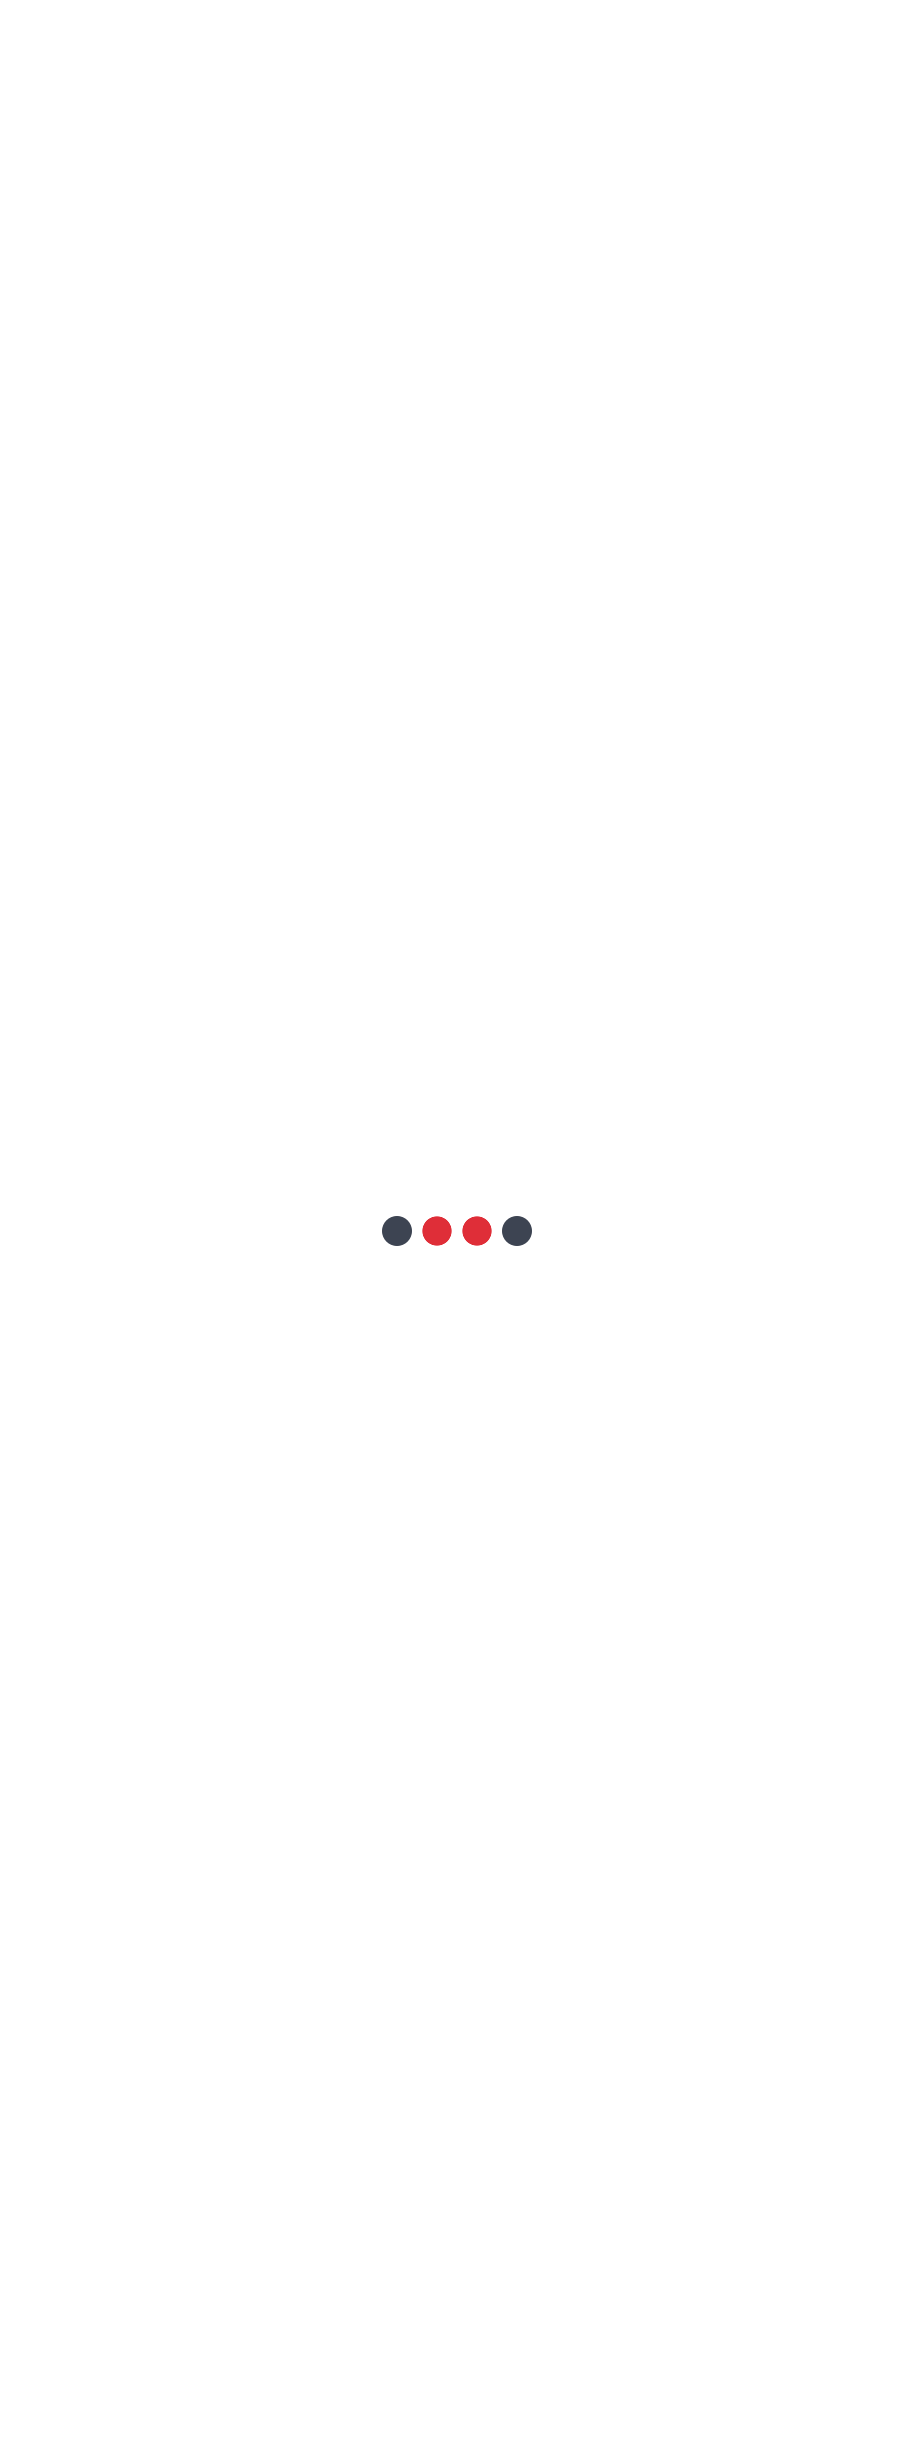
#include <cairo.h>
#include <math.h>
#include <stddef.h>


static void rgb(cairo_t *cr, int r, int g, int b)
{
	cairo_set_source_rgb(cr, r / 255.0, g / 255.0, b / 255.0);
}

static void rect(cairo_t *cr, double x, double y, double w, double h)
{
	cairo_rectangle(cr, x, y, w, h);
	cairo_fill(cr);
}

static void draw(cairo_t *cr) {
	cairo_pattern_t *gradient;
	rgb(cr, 255, 255, 255);
	cairo_paint(cr);
	gradient = cairo_pattern_create_radial(477, 1231, 0, 477, 1231, 15);
	cairo_pattern_add_color_stop_rgba(gradient, 0.95, 0.875, 0.18, 0.22, 1);
	cairo_pattern_add_color_stop_rgba(gradient, 1, 1, 1, 1, 1);
	cairo_set_source(cr, gradient);
	cairo_pattern_destroy(gradient);
	rect(cr, 462, 1216, 30, 30);
	gradient = cairo_pattern_create_radial(437, 1231, 0, 437, 1231, 15);
	cairo_pattern_add_color_stop_rgba(gradient, 0.95, 0.875, 0.18, 0.22, 1);
	cairo_pattern_add_color_stop_rgba(gradient, 1, 1, 1, 1, 1);
	cairo_set_source(cr, gradient);
	cairo_pattern_destroy(gradient);
	rect(cr, 422, 1216, 30, 30);
	rgb(cr, 61, 68, 82);
	cairo_arc(cr, 397, 1231, 15, 0, 2 * M_PI);
	cairo_fill(cr);
	cairo_arc(cr, 517, 1231, 15, 0, 2 * M_PI);
	cairo_fill(cr);
}

int main(void) {
	cairo_surface_t *surface = cairo_image_surface_create(CAIRO_FORMAT_RGB24, 912, 2459);
	cairo_t *cr = cairo_create(surface);
	cairo_font_options_t *options = cairo_font_options_create();
	cairo_font_options_set_hint_metrics(options, CAIRO_HINT_METRICS_OFF);
	cairo_font_options_set_hint_style(options, CAIRO_HINT_STYLE_NONE);
	cairo_set_font_options(cr, options);
	cairo_set_miter_limit(cr, 4);
	draw(cr);
	cairo_surface_write_to_png(surface, "render.png");
	cairo_font_options_destroy(options);
	cairo_destroy(cr);
	cairo_surface_destroy(surface);
	return 0;
}
